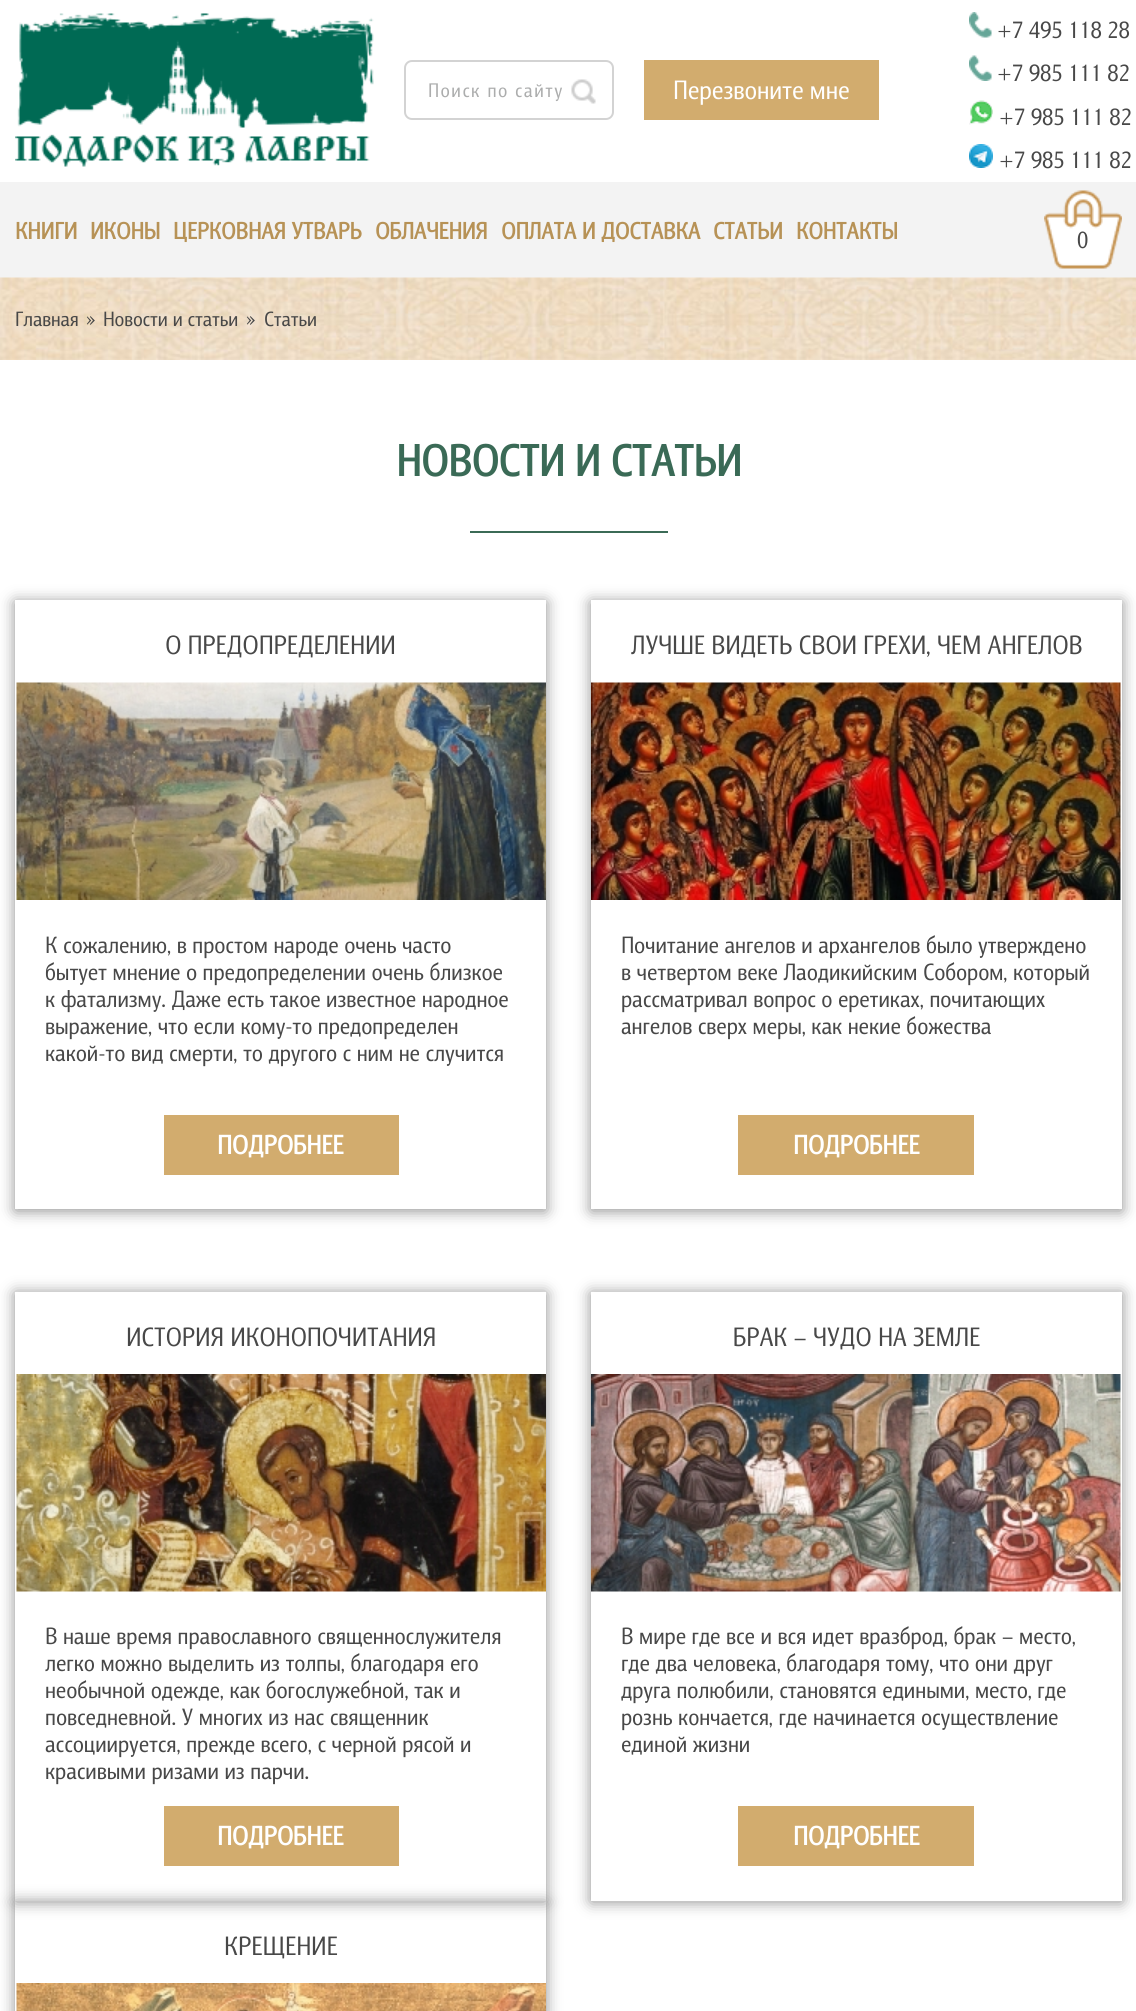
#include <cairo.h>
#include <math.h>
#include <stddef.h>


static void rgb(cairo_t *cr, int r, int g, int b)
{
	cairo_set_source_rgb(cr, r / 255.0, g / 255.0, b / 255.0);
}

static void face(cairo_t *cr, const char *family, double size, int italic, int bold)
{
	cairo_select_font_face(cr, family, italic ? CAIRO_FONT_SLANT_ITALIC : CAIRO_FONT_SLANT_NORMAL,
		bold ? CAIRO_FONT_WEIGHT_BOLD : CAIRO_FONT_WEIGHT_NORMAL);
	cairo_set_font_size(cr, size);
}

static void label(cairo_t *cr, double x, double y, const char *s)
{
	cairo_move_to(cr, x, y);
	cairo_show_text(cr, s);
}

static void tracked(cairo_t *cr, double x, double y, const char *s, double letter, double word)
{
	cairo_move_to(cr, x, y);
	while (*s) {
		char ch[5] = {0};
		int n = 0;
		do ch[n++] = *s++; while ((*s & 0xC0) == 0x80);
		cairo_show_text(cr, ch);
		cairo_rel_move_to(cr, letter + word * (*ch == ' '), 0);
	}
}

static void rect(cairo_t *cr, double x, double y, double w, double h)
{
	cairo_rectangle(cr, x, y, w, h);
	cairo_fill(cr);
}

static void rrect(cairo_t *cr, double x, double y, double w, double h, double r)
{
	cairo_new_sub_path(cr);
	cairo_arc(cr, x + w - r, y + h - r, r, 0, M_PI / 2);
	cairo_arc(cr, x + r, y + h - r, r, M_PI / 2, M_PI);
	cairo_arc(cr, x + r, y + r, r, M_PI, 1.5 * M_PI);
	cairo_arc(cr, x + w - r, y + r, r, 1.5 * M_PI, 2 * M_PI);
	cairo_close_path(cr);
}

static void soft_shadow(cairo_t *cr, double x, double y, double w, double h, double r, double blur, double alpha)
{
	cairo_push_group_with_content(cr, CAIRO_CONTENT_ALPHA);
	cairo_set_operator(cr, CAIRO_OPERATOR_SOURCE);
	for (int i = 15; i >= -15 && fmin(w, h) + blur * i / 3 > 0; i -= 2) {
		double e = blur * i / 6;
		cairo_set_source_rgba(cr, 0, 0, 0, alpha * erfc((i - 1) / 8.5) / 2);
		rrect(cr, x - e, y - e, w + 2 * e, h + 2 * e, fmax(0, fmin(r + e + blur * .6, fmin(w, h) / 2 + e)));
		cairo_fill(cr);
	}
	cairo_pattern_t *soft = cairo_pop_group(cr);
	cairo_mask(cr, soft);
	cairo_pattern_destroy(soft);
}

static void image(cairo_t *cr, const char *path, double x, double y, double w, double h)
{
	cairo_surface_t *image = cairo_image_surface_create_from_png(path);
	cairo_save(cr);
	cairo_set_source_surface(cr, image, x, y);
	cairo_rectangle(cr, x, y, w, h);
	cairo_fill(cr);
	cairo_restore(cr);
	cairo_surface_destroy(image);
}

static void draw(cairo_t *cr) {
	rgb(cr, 255, 255, 255);
	cairo_paint(cr);
	image(cr, "image0.png", 15, 13, 359, 154);
	rrect(cr, 405, 61, 208, 58, 7);
	rgb(cr, 211, 211, 211);
	cairo_stroke(cr);
	face(cr, "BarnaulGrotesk", 20, 0, 0);
	rgb(cr, 172, 173, 173);
	tracked(cr, 428, 97, "Поиск по сайту", 1.6, 0);
	image(cr, "image1.png", 571, 79, 25, 25);
	rgb(cr, 210, 172, 110);
	rect(cr, 644, 60, 235, 60);
	face(cr, "BarnaulGrotesk", 27, 0, 0);
	rgb(cr, 255, 255, 255);
	label(cr, 673, 99, "Перезвоните мне");
	image(cr, "image2.png", 969, 12, 23, 26);
	face(cr, "BarnaulGrotesk", 24, 0, 0);
	rgb(cr, 72, 72, 72);
	label(cr, 997, 38, "+7 495 118 28");
	image(cr, "image3.png", 969, 55, 23, 26);
	label(cr, 997, 81, "+7 985 111 82");
	image(cr, "image4.png", 969, 100, 24, 25);
	label(cr, 999, 125, "+7 985 111 82");
	image(cr, "image5.png", 969, 144, 24, 24);
	label(cr, 999, 168, "+7 985 111 82");
	rgb(cr, 243, 243, 243);
	rect(cr, 0, 182, 1136, 96);
	face(cr, "BarnaulGrotesk", 24, 0, 1);
	rgb(cr, 183, 146, 86);
	label(cr, 15, 239, "КНИГИ");
	label(cr, 90, 239, "ИКОНЫ");
	label(cr, 173, 239, "ЦЕРКОВНАЯ УТВАРЬ");
	label(cr, 375, 239, "ОБЛАЧЕНИЯ");
	label(cr, 501, 239, "ОПЛАТА И ДОСТАВКА");
	label(cr, 713, 239, "СТАТЬИ");
	label(cr, 796, 239, "КОНТАКТЫ");
	image(cr, "image6.png", 1044, 190, 78, 79);
	face(cr, "BarnaulGrotesk", 24, 0, 0);
	rgb(cr, 72, 72, 72);
	label(cr, 1077, 248, "0");
	image(cr, "image7.png", 0, 277, 1136, 83);
	face(cr, "BarnaulGrotesk", 21, 0, 0);
	label(cr, 15, 326, "Главная");
	label(cr, 86, 326, "»");
	label(cr, 103, 326, "Новости и статьи");
	label(cr, 246, 326, "»");
	label(cr, 264, 326, "Cтатьи");
	face(cr, "BarnaulGrotesk", 45, 0, 1);
	rgb(cr, 58, 106, 86);
	label(cr, 396, 476, "НОВОСТИ И СТАТЬИ");
	rgb(cr, 59, 107, 86);
	rect(cr, 470, 531, 198, 2);
	cairo_save(cr);
	cairo_set_fill_rule(cr, CAIRO_FILL_RULE_EVEN_ODD);
	cairo_new_path(cr);
	cairo_move_to(cr, 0, 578);
	cairo_line_to(cr, 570, 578);
	cairo_line_to(cr, 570, 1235);
	cairo_line_to(cr, 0, 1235);
	cairo_close_path(cr);
	cairo_move_to(cr, 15, 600);
	cairo_line_to(cr, 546, 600);
	cairo_line_to(cr, 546, 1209);
	cairo_line_to(cr, 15, 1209);
	cairo_close_path(cr);
	cairo_clip(cr);
	rgb(cr, 142, 142, 142);
	soft_shadow(cr, 15, 602, 531, 609, 0, 7.5, 1);
	cairo_restore(cr);
	face(cr, "BarnaulGrotesk", 27, 0, 0);
	rgb(cr, 72, 72, 72);
	label(cr, 165, 654, "О ПРЕДОПРЕДЕЛЕНИИ");
	image(cr, "image8.png", 16, 682, 530, 218);
	face(cr, "BarnaulGrotesk", 24, 0, 0);
	label(cr, 45, 953, "К сожалению, в простом народе очень часто");
	label(cr, 45, 980, "бытует мнение о предопределении очень близкое");
	label(cr, 45, 1007, "к фатализму. Даже есть такое известное народное");
	label(cr, 45, 1034, "выражение, что если кому-то предопределен");
	label(cr, 45, 1061, "какой-то вид смерти, то другого с ним не случится");
	rgb(cr, 210, 172, 110);
	rect(cr, 164, 1115, 235, 60);
	face(cr, "BarnaulGrotesk", 27, 0, 1);
	rgb(cr, 255, 255, 255);
	label(cr, 217, 1154, "ПОДРОБНЕЕ");
	cairo_save(cr);
	cairo_set_fill_rule(cr, CAIRO_FILL_RULE_EVEN_ODD);
	cairo_new_path(cr);
	cairo_move_to(cr, 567, 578);
	cairo_line_to(cr, 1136, 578);
	cairo_line_to(cr, 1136, 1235);
	cairo_line_to(cr, 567, 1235);
	cairo_close_path(cr);
	cairo_move_to(cr, 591, 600);
	cairo_line_to(cr, 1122, 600);
	cairo_line_to(cr, 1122, 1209);
	cairo_line_to(cr, 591, 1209);
	cairo_close_path(cr);
	cairo_clip(cr);
	rgb(cr, 142, 142, 142);
	soft_shadow(cr, 591, 602, 531, 609, 0, 7.5, 1);
	cairo_restore(cr);
	face(cr, "BarnaulGrotesk", 27, 0, 0);
	rgb(cr, 72, 72, 72);
	label(cr, 631, 654, "ЛУЧШЕ ВИДЕТЬ СВОИ ГРЕХИ, ЧЕМ АНГЕЛОВ");
	image(cr, "image9.png", 591, 682, 530, 218);
	face(cr, "BarnaulGrotesk", 24, 0, 0);
	label(cr, 621, 953, "Почитание ангелов и архангелов было утверждено");
	label(cr, 621, 980, "в четвертом веке Лаодикийским Собором, который");
	label(cr, 621, 1007, "рассматривал вопрос о еретиках, почитающих");
	label(cr, 621, 1034, "ангелов сверх меры, как некие божества");
	rgb(cr, 210, 172, 110);
	rect(cr, 738, 1115, 236, 60);
	face(cr, "BarnaulGrotesk", 27, 0, 1);
	rgb(cr, 255, 255, 255);
	label(cr, 793, 1154, "ПОДРОБНЕЕ");
	cairo_save(cr);
	cairo_set_fill_rule(cr, CAIRO_FILL_RULE_EVEN_ODD);
	cairo_new_path(cr);
	cairo_move_to(cr, 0, 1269);
	cairo_line_to(cr, 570, 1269);
	cairo_line_to(cr, 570, 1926);
	cairo_line_to(cr, 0, 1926);
	cairo_close_path(cr);
	cairo_move_to(cr, 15, 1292);
	cairo_line_to(cr, 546, 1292);
	cairo_line_to(cr, 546, 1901);
	cairo_line_to(cr, 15, 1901);
	cairo_close_path(cr);
	cairo_clip(cr);
	rgb(cr, 142, 142, 142);
	soft_shadow(cr, 15, 1293, 531, 609, 0, 7.5, 1);
	cairo_restore(cr);
	face(cr, "BarnaulGrotesk", 27, 0, 0);
	rgb(cr, 72, 72, 72);
	label(cr, 126, 1346, "ИСТОРИЯ ИКОНОПОЧИТАНИЯ");
	image(cr, "image10.png", 16, 1374, 530, 218);
	face(cr, "BarnaulGrotesk", 24, 0, 0);
	label(cr, 45, 1644, "В наше время православного священнослужителя");
	label(cr, 45, 1671, "легко можно выделить из толпы, благодаря его");
	label(cr, 45, 1698, "необычной одежде, как богослужебной, так и");
	label(cr, 45, 1725, "повседневной. У многих из нас священник");
	label(cr, 45, 1752, "ассоциируется, прежде всего, с черной рясой и");
	label(cr, 45, 1779, "красивыми ризами из парчи.");
	rgb(cr, 210, 172, 110);
	rect(cr, 164, 1806, 235, 60);
	face(cr, "BarnaulGrotesk", 27, 0, 1);
	rgb(cr, 255, 255, 255);
	label(cr, 217, 1845, "ПОДРОБНЕЕ");
	cairo_save(cr);
	cairo_set_fill_rule(cr, CAIRO_FILL_RULE_EVEN_ODD);
	cairo_new_path(cr);
	cairo_move_to(cr, 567, 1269);
	cairo_line_to(cr, 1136, 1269);
	cairo_line_to(cr, 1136, 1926);
	cairo_line_to(cr, 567, 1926);
	cairo_close_path(cr);
	cairo_move_to(cr, 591, 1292);
	cairo_line_to(cr, 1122, 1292);
	cairo_line_to(cr, 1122, 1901);
	cairo_line_to(cr, 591, 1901);
	cairo_close_path(cr);
	cairo_clip(cr);
	rgb(cr, 142, 142, 142);
	soft_shadow(cr, 591, 1293, 531, 609, 0, 7.5, 1);
	cairo_restore(cr);
	face(cr, "BarnaulGrotesk", 27, 0, 0);
	rgb(cr, 72, 72, 72);
	label(cr, 733, 1346, "БРАК – ЧУДО НА ЗЕМЛЕ");
	image(cr, "image11.png", 591, 1374, 530, 218);
	face(cr, "BarnaulGrotesk", 24, 0, 0);
	label(cr, 621, 1644, "В мире где все и вся идет вразброд, брак – место,");
	label(cr, 621, 1671, "где два человека, благодаря тому, что они друг");
	label(cr, 621, 1698, "друга полюбили, становятся едиными, место, где");
	label(cr, 621, 1725, "рознь кончается, где начинается осуществление");
	label(cr, 621, 1752, "единой жизни");
	rgb(cr, 210, 172, 110);
	rect(cr, 738, 1806, 236, 60);
	face(cr, "BarnaulGrotesk", 27, 0, 1);
	rgb(cr, 255, 255, 255);
	label(cr, 793, 1845, "ПОДРОБНЕЕ");
	cairo_save(cr);
	cairo_set_fill_rule(cr, CAIRO_FILL_RULE_EVEN_ODD);
	cairo_new_path(cr);
	cairo_move_to(cr, 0, 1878);
	cairo_line_to(cr, 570, 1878);
	cairo_line_to(cr, 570, 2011);
	cairo_line_to(cr, 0, 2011);
	cairo_close_path(cr);
	cairo_move_to(cr, 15, 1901);
	cairo_line_to(cr, 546, 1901);
	cairo_line_to(cr, 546, 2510);
	cairo_line_to(cr, 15, 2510);
	cairo_close_path(cr);
	cairo_clip(cr);
	rgb(cr, 142, 142, 142);
	soft_shadow(cr, 15, 1902, 531, 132, 0, 7.5, 1);
	cairo_restore(cr);
	face(cr, "BarnaulGrotesk", 27, 0, 0);
	rgb(cr, 72, 72, 72);
	label(cr, 224, 1955, "КРЕЩЕНИЕ");
	image(cr, "image12.png", 16, 1983, 530, 28);
}

int main(void) {
	cairo_surface_t *surface = cairo_image_surface_create(CAIRO_FORMAT_RGB24, 1136, 2011);
	cairo_t *cr = cairo_create(surface);
	cairo_font_options_t *options = cairo_font_options_create();
	cairo_font_options_set_hint_metrics(options, CAIRO_HINT_METRICS_OFF);
	cairo_font_options_set_hint_style(options, CAIRO_HINT_STYLE_NONE);
	cairo_set_font_options(cr, options);
	cairo_set_miter_limit(cr, 4);
	draw(cr);
	cairo_surface_write_to_png(surface, "render.png");
	cairo_font_options_destroy(options);
	cairo_destroy(cr);
	cairo_surface_destroy(surface);
	return 0;
}
